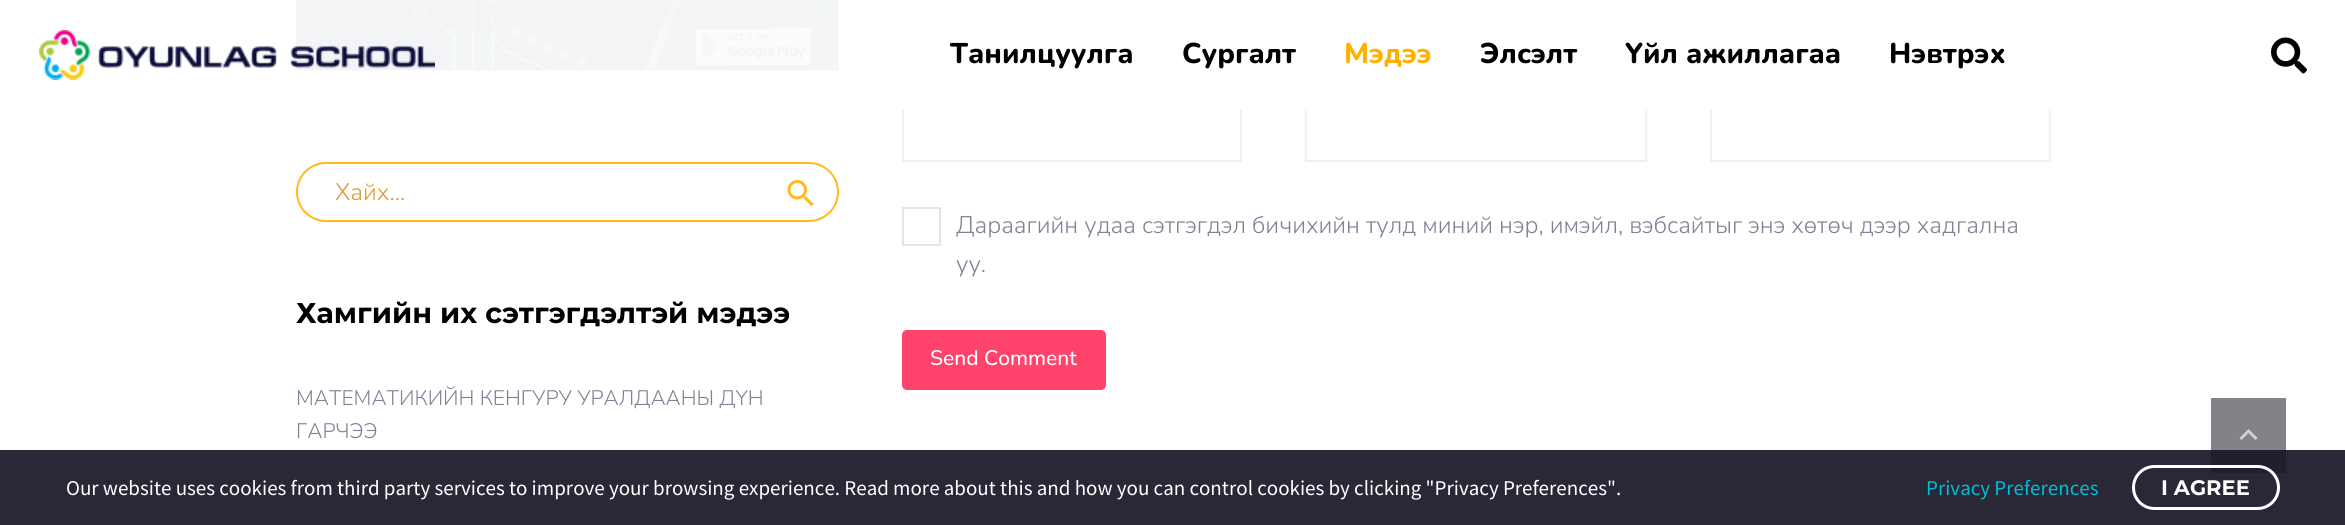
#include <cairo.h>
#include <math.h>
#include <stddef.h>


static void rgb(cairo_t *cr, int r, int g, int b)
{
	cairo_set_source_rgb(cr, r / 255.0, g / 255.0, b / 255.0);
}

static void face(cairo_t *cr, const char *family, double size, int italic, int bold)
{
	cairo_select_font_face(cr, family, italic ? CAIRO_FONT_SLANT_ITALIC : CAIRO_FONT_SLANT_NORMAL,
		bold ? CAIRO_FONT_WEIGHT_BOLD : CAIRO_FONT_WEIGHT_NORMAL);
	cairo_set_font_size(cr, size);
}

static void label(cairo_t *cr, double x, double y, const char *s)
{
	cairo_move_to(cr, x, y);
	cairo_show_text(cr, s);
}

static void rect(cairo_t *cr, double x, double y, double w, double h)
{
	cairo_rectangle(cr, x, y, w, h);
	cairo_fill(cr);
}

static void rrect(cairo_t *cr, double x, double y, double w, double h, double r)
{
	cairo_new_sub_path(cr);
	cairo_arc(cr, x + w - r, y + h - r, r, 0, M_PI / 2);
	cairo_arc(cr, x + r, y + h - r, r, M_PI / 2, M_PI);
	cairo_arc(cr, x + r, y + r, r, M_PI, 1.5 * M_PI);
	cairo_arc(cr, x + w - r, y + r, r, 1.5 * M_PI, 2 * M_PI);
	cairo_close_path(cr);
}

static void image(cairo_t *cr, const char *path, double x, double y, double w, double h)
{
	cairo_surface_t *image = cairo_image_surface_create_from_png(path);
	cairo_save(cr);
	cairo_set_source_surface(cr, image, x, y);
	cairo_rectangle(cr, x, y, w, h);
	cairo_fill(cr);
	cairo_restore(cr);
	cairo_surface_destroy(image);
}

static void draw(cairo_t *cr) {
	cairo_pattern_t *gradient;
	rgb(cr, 255, 255, 255);
	cairo_paint(cr);
	rgb(cr, 40, 40, 55);
	rect(cr, 0, 450, 2345, 75);
	image(cr, "image2.png", 295, 0, 544, 70);
	gradient = cairo_pattern_create_linear(567, 71, 567, -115);
	cairo_pattern_add_color_stop_rgba(gradient, 0, 0, 0, 0, 0.3);
	cairo_pattern_add_color_stop_rgba(gradient, 1, 0, 0, 0, 0);
	cairo_set_source(cr, gradient);
	cairo_pattern_destroy(gradient);
	rect(cr, 296, 0, 543, 71);
	cairo_set_source_rgba(cr, 0, 0, 0, 0.5);
	rrect(cr, 329, -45, 477, 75, 45);
	cairo_fill(cr);
	cairo_rectangle(cr, 903, 88, 338, 73);
	rgb(cr, 240, 240, 245);
	cairo_stroke(cr);
	cairo_rectangle(cr, 1306, 88, 340, 73);
	cairo_stroke(cr);
	cairo_rectangle(cr, 1711, 88, 339, 73);
	cairo_stroke(cr);
	cairo_set_source_rgba(cr, 1, 1, 1, 0.95);
	rect(cr, 295, 0, 1756, 110);
	image(cr, "image0.png", 39, 30, 396, 50);
	face(cr, "Nunito ExtraBold", 28.5, 0, 0);
	rgb(cr, 0, 0, 0);
	label(cr, 950, 63, "Танилцуулга");
	label(cr, 1182, 63, "Сургалт");
	rgb(cr, 255, 177, 0);
	label(cr, 1344, 63, "Мэдээ");
	rgb(cr, 0, 0, 0);
	label(cr, 1480, 63, "Элсэлт");
	label(cr, 1625, 63, "Үйл ажиллагаа");
	label(cr, 1889, 63, "Нэвтрэх");
	image(cr, "image1.png", 2271, 37, 36, 37);
	rrect(cr, 297, 163, 541, 58, 29);
	rgb(cr, 255, 186, 28);
	cairo_stroke(cr);
	face(cr, "Nunito Light", 24, 0, 0);
	rgb(cr, 221, 153, 51);
	label(cr, 335, 200, "Хайх...");
	image(cr, "image3.png", 787, 180, 27, 27);
	face(cr, "Montserrat", 28.5, 0, 1);
	rgb(cr, 0, 0, 0);
	label(cr, 296, 323, "Хамгийн их сэтгэгдэлтэй мэдээ");
	face(cr, "Nunito Light", 21, 0, 0);
	rgb(cr, 129, 129, 150);
	label(cr, 296, 405, "МАТЕМАТИКИЙН КЕНГУРУ УРАЛДААНЫ ДҮН");
	label(cr, 296, 438, "ГАРЧЭЭ");
	cairo_rectangle(cr, 903, 208, 37, 37);
	rgb(cr, 223, 229, 232);
	cairo_stroke(cr);
	face(cr, "Nunito Light", 24, 0, 0);
	rgb(cr, 129, 129, 150);
	label(cr, 956, 233, "Дараагийн удаа сэтгэгдэл бичихийн тулд миний нэр, имэйл, вэбсайтыг энэ хөтөч дээр хадгална");
	label(cr, 956, 272, "уу.");
	rgb(cr, 255, 67, 107);
	rrect(cr, 902, 330, 204, 60, 5);
	cairo_fill(cr);
	face(cr, "Nunito Medium", 21, 0, 0);
	rgb(cr, 255, 255, 255);
	label(cr, 930, 365, "Send Comment");
	rgb(cr, 131, 131, 135);
	rect(cr, 2211, 398, 75, 52);
	rgb(cr, 31, 31, 47);
	rect(cr, 2211, 450, 75, 23);
	rgb(cr, 204, 212, 218);
	cairo_new_path(cr);
	cairo_move_to(cr, 2241.5, 440);
	cairo_line_to(cr, 2248.5, 433);
	cairo_line_to(cr, 2255.5, 440);
	cairo_line_to(cr, 2257.5, 438);
	cairo_line_to(cr, 2248.5, 429);
	cairo_line_to(cr, 2239.5, 438);
	cairo_close_path(cr);
	cairo_fill(cr);
	face(cr, "Source Sans Pro", 21, 0, 0);
	rgb(cr, 255, 255, 255);
	label(cr, 66, 495, "Our website uses cookies from third party services to improve your browsing experience. Read more about this and how you can control cookies by clicking \"Privacy Preferences\".");
	rgb(cr, 0, 188, 212);
	label(cr, 1926, 495, "Privacy Preferences");
	rrect(cr, 2133.5, 466.5, 145, 42, 21);
	rgb(cr, 255, 255, 255);
	cairo_set_line_width(cr, 3);
	cairo_stroke(cr);
	face(cr, "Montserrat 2", 21, 0, 1);
	label(cr, 2161, 495, "I AGREE");
}

int main(void) {
	cairo_surface_t *surface = cairo_image_surface_create(CAIRO_FORMAT_RGB24, 2345, 525);
	cairo_t *cr = cairo_create(surface);
	cairo_font_options_t *options = cairo_font_options_create();
	cairo_font_options_set_hint_metrics(options, CAIRO_HINT_METRICS_OFF);
	cairo_font_options_set_hint_style(options, CAIRO_HINT_STYLE_NONE);
	cairo_set_font_options(cr, options);
	cairo_set_miter_limit(cr, 4);
	draw(cr);
	cairo_surface_write_to_png(surface, "render.png");
	cairo_font_options_destroy(options);
	cairo_destroy(cr);
	cairo_surface_destroy(surface);
	return 0;
}
